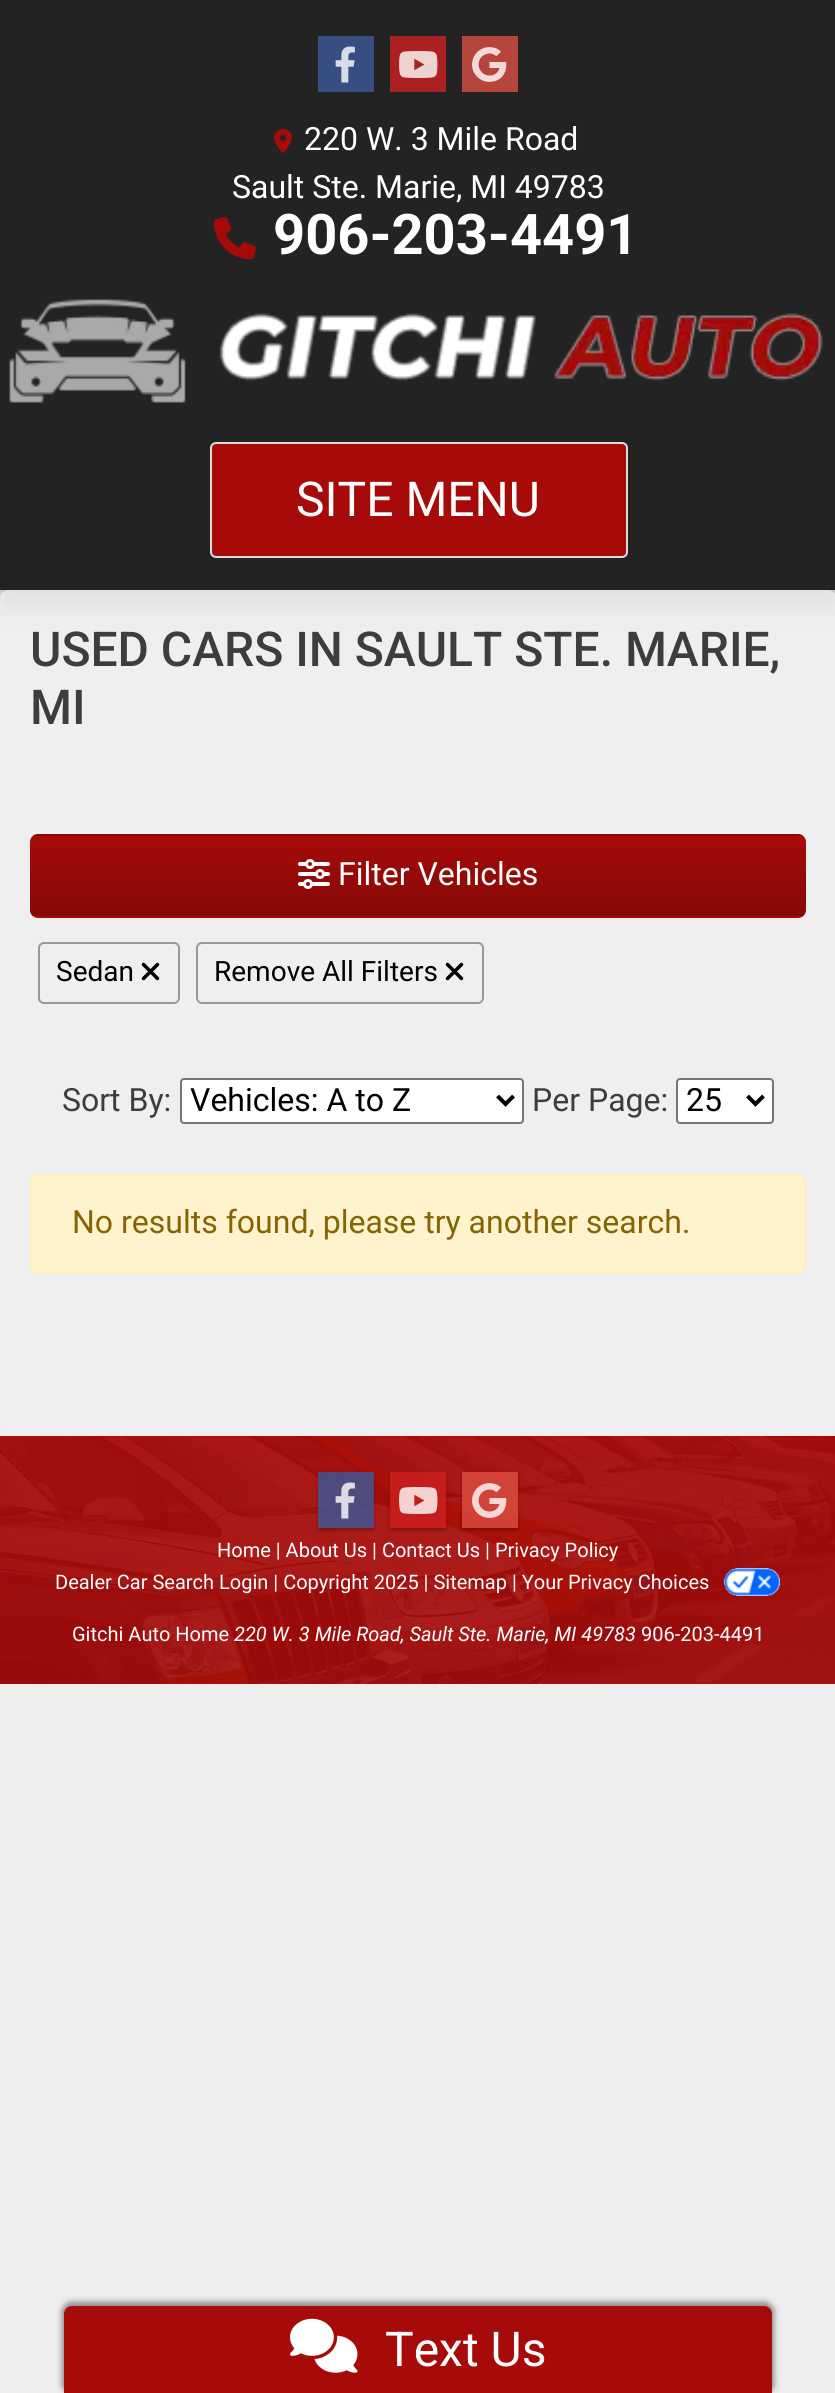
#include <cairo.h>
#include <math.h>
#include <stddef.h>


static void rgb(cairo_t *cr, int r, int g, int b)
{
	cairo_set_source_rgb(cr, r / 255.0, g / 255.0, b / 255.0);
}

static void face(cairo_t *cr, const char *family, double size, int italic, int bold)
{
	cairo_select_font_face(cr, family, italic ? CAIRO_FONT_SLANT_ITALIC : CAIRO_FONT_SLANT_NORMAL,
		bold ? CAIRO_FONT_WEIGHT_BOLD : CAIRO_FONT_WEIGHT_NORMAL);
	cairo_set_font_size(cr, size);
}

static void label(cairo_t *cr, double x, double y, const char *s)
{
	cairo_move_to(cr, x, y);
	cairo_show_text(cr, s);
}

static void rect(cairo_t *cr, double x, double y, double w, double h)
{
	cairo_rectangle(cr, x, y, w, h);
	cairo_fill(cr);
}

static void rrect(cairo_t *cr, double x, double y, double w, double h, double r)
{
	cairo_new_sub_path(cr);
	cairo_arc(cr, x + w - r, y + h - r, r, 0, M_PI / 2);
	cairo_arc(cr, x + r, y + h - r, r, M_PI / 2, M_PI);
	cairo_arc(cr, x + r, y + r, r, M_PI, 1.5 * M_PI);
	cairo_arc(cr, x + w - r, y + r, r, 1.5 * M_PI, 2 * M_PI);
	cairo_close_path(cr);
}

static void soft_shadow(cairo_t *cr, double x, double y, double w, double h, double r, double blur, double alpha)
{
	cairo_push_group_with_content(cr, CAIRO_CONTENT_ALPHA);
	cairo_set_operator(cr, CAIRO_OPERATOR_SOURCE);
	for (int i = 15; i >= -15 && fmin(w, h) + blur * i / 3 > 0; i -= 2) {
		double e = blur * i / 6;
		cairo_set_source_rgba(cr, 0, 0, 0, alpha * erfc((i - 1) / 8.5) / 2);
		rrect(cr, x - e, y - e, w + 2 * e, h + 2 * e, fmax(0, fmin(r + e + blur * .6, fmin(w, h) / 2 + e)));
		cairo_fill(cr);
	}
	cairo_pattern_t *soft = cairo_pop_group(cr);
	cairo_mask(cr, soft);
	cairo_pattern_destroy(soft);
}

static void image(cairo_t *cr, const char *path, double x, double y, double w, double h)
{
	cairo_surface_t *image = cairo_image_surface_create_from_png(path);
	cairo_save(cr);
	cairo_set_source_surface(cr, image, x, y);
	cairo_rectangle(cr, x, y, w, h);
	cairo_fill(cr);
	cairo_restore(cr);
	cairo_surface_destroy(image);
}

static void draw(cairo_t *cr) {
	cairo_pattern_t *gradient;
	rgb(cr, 238, 238, 238);
	cairo_paint(cr);
	rgb(cr, 0, 0, 0);
	soft_shadow(cr, 0, 10, 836, 590, 0, 5, 0.1);
	soft_shadow(cr, 0, 20, 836, 590, 0, 10, 0.2);
	rgb(cr, 35, 35, 35);
	rect(cr, 0, 0, 835, 590);
	rgb(cr, 54, 78, 129);
	rect(cr, 318, 36, 56, 56);
	image(cr, "image0.png", 335, 46, 20, 37);
	rgb(cr, 171, 33, 32);
	rect(cr, 390, 36, 56, 56);
	image(cr, "image1.png", 399, 51, 39, 27);
	rgb(cr, 183, 69, 59);
	rect(cr, 462, 36, 56, 56);
	image(cr, "image2.png", 472, 47, 35, 35);
	image(cr, "image3.png", 274, 129, 18, 24);
	face(cr, "Roboto", 32, 0, 0);
	rgb(cr, 255, 255, 255);
	label(cr, 304, 150, "220 W. 3 Mile Road");
	label(cr, 232, 198, "Sault Ste. Marie, MI 49783");
	image(cr, "image4.png", 214, 217, 42, 43);
	face(cr, "Roboto", 56, 0, 1);
	label(cr, 273, 254, "906-203-4491");
	image(cr, "image5.png", 9, 299, 814, 104);
	rgb(cr, 166, 11, 9);
	rrect(cr, 211, 443, 416, 114, 5);
	cairo_fill_preserve(cr);
	rgb(cr, 220, 220, 220);
	cairo_stroke(cr);
	face(cr, "Roboto", 48, 0, 0);
	rgb(cr, 255, 255, 255);
	label(cr, 296, 516, "SITE MENU");
	cairo_set_source_rgba(cr, 0.933, 0.933, 0.933, 0.8);
	rrect(cr, 0, 590, 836, 846, 8);
	cairo_fill(cr);
	face(cr, "Roboto Medium", 48, 0, 0);
	rgb(cr, 61, 61, 61);
	label(cr, 30, 666, "USED CARS IN SAULT STE. MARIE,");
	label(cr, 30, 724, "MI");
	rgb(cr, 166, 11, 9);
	rrect(cr, 30, 834, 776, 84, 8);
	cairo_fill(cr);
	cairo_save(cr);
	rrect(cr, 30, 834, 776, 84, 8);
	cairo_clip(cr);
	gradient = cairo_pattern_create_linear(418, 756, 418, 836);
	cairo_pattern_add_color_stop_rgba(gradient, 0, 0, 0, 0, 0);
	cairo_pattern_add_color_stop_rgba(gradient, 1, 0, 0, 0, 0.2);
	cairo_set_source(cr, gradient);
	cairo_pattern_destroy(gradient);
	rect(cr, 30, 834, 776, 2);
	gradient = cairo_pattern_create_linear(418, 836, 418, 916);
	cairo_pattern_add_color_stop_rgba(gradient, 0, 0, 0, 0, 0);
	cairo_pattern_add_color_stop_rgba(gradient, 1, 0, 0, 0, 0.2);
	cairo_set_source(cr, gradient);
	cairo_pattern_destroy(gradient);
	rect(cr, 30, 845, 776, 71);
	cairo_restore(cr);
	image(cr, "image6.png", 298, 859, 32, 30);
	face(cr, "Roboto", 32, 0, 0);
	rgb(cr, 255, 255, 255);
	label(cr, 338, 885, "Filter Vehicles");
	rrect(cr, 39, 943, 140, 60, 5);
	rgb(cr, 153, 153, 153);
	cairo_stroke(cr);
	face(cr, "Roboto", 28, 0, 0);
	rgb(cr, 0, 0, 0);
	label(cr, 56, 981, "Sedan");
	image(cr, "image7.png", 141, 962, 19, 19);
	rrect(cr, 197, 943, 286, 60, 5);
	rgb(cr, 153, 153, 153);
	cairo_stroke(cr);
	rgb(cr, 0, 0, 0);
	label(cr, 214, 981, "Remove All Filters");
	image(cr, "image7.png", 445, 962, 19, 19);
	face(cr, "Roboto", 32, 0, 0);
	rgb(cr, 61, 61, 61);
	label(cr, 62, 1111, "Sort By:");
	rgb(cr, 255, 255, 255);
	rrect(cr, 181, 1079, 342, 44, 3);
	cairo_fill_preserve(cr);
	rgb(cr, 118, 118, 118);
	cairo_stroke(cr);
	cairo_new_path(cr);
	cairo_move_to(cr, 497.5, 1096);
	cairo_line_to(cr, 505.5, 1104);
	cairo_line_to(cr, 513.5, 1096);
	rgb(cr, 0, 0, 0);
	cairo_set_line_width(cr, 4);
	cairo_stroke(cr);
	label(cr, 190, 1111, "Vehicles: A to Z");
	rgb(cr, 61, 61, 61);
	label(cr, 532, 1111, "Per Page:");
	rgb(cr, 255, 255, 255);
	rrect(cr, 677, 1079, 96, 44, 3);
	cairo_fill_preserve(cr);
	rgb(cr, 118, 118, 118);
	cairo_set_line_width(cr, 2);
	cairo_stroke(cr);
	cairo_new_path(cr);
	cairo_move_to(cr, 747.5, 1096);
	cairo_line_to(cr, 755.5, 1104);
	cairo_line_to(cr, 763.5, 1096);
	rgb(cr, 0, 0, 0);
	cairo_set_line_width(cr, 4);
	cairo_stroke(cr);
	label(cr, 686, 1111, "25");
	rgb(cr, 255, 243, 205);
	rrect(cr, 31, 1175, 774, 98, 7);
	cairo_fill_preserve(cr);
	rgb(cr, 255, 238, 186);
	cairo_set_line_width(cr, 2);
	cairo_stroke(cr);
	rgb(cr, 133, 100, 4);
	label(cr, 72, 1233, "No results found, please try another search.");
	image(cr, "image8.png", 0, 1436, 835, 248);
	cairo_save(cr);
	cairo_set_fill_rule(cr, CAIRO_FILL_RULE_EVEN_ODD);
	cairo_new_path(cr);
	cairo_move_to(cr, 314, 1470);
	cairo_line_to(cr, 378, 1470);
	cairo_line_to(cr, 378, 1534);
	cairo_line_to(cr, 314, 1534);
	cairo_close_path(cr);
	cairo_move_to(cr, 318, 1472);
	cairo_line_to(cr, 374, 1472);
	cairo_line_to(cr, 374, 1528);
	cairo_line_to(cr, 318, 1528);
	cairo_close_path(cr);
	cairo_clip(cr);
	rgb(cr, 0, 0, 0);
	soft_shadow(cr, 318, 1474, 56, 56, 0, 1, 0.16);
	cairo_restore(cr);
	cairo_save(cr);
	cairo_set_fill_rule(cr, CAIRO_FILL_RULE_EVEN_ODD);
	cairo_new_path(cr);
	cairo_move_to(cr, 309, 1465);
	cairo_line_to(cr, 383, 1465);
	cairo_line_to(cr, 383, 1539);
	cairo_line_to(cr, 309, 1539);
	cairo_close_path(cr);
	cairo_move_to(cr, 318, 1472);
	cairo_line_to(cr, 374, 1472);
	cairo_line_to(cr, 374, 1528);
	cairo_line_to(cr, 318, 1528);
	cairo_close_path(cr);
	cairo_clip(cr);
	rgb(cr, 0, 0, 0);
	soft_shadow(cr, 316, 1472, 60, 60, 0, 2, 0.08);
	cairo_restore(cr);
	cairo_set_source_rgba(cr, 0.231, 0.349, 0.596, 0.8);
	rect(cr, 318, 1472, 56, 56);
	image(cr, "image9.png", 335, 1482, 20, 37);
	cairo_save(cr);
	cairo_set_fill_rule(cr, CAIRO_FILL_RULE_EVEN_ODD);
	cairo_new_path(cr);
	cairo_move_to(cr, 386, 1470);
	cairo_line_to(cr, 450, 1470);
	cairo_line_to(cr, 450, 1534);
	cairo_line_to(cr, 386, 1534);
	cairo_close_path(cr);
	cairo_move_to(cr, 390, 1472);
	cairo_line_to(cr, 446, 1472);
	cairo_line_to(cr, 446, 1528);
	cairo_line_to(cr, 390, 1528);
	cairo_close_path(cr);
	cairo_clip(cr);
	rgb(cr, 0, 0, 0);
	soft_shadow(cr, 390, 1474, 56, 56, 0, 1, 0.16);
	cairo_restore(cr);
	cairo_save(cr);
	cairo_set_fill_rule(cr, CAIRO_FILL_RULE_EVEN_ODD);
	cairo_new_path(cr);
	cairo_move_to(cr, 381, 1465);
	cairo_line_to(cr, 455, 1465);
	cairo_line_to(cr, 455, 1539);
	cairo_line_to(cr, 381, 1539);
	cairo_close_path(cr);
	cairo_move_to(cr, 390, 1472);
	cairo_line_to(cr, 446, 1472);
	cairo_line_to(cr, 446, 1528);
	cairo_line_to(cr, 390, 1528);
	cairo_close_path(cr);
	cairo_clip(cr);
	rgb(cr, 0, 0, 0);
	soft_shadow(cr, 388, 1472, 60, 60, 0, 2, 0.08);
	cairo_restore(cr);
	cairo_set_source_rgba(cr, 0.804, 0.125, 0.122, 0.8);
	rect(cr, 390, 1472, 56, 56);
	image(cr, "image10.png", 399, 1487, 39, 27);
	cairo_save(cr);
	cairo_set_fill_rule(cr, CAIRO_FILL_RULE_EVEN_ODD);
	cairo_new_path(cr);
	cairo_move_to(cr, 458, 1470);
	cairo_line_to(cr, 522, 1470);
	cairo_line_to(cr, 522, 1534);
	cairo_line_to(cr, 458, 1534);
	cairo_close_path(cr);
	cairo_move_to(cr, 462, 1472);
	cairo_line_to(cr, 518, 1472);
	cairo_line_to(cr, 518, 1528);
	cairo_line_to(cr, 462, 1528);
	cairo_close_path(cr);
	cairo_clip(cr);
	rgb(cr, 0, 0, 0);
	soft_shadow(cr, 462, 1474, 56, 56, 0, 1, 0.16);
	cairo_restore(cr);
	cairo_save(cr);
	cairo_set_fill_rule(cr, CAIRO_FILL_RULE_EVEN_ODD);
	cairo_new_path(cr);
	cairo_move_to(cr, 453, 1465);
	cairo_line_to(cr, 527, 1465);
	cairo_line_to(cr, 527, 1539);
	cairo_line_to(cr, 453, 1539);
	cairo_close_path(cr);
	cairo_move_to(cr, 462, 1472);
	cairo_line_to(cr, 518, 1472);
	cairo_line_to(cr, 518, 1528);
	cairo_line_to(cr, 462, 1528);
	cairo_close_path(cr);
	cairo_clip(cr);
	rgb(cr, 0, 0, 0);
	soft_shadow(cr, 460, 1472, 60, 60, 0, 2, 0.08);
	cairo_restore(cr);
	cairo_set_source_rgba(cr, 0.863, 0.306, 0.255, 0.8);
	rect(cr, 462, 1472, 56, 56);
	image(cr, "image11.png", 472, 1483, 35, 35);
	face(cr, "Roboto", 20, 0, 0);
	rgb(cr, 255, 255, 255);
	label(cr, 217, 1557, "Home | About Us | Contact Us | Privacy Policy");
	label(cr, 55, 1589, "Dealer Car Search Login | Copyright 2025 | Sitemap | Your Privacy Choices");
	image(cr, "image12.png", 724, 1568, 56, 28);
	label(cr, 72, 1641, "Gitchi Auto Home");
	face(cr, "Roboto", 20, 1, 0);
	label(cr, 234, 1641, "220 W. 3 Mile Road, Sault Ste. Marie, MI 49783");
	face(cr, "Roboto", 20, 0, 0);
	label(cr, 641, 1641, "906-203-4491");
	rgb(cr, 0, 0, 0);
	soft_shadow(cr, 62, 2302, 712, 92, 10, 2, 0.25);
	soft_shadow(cr, 60, 2300, 716, 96, 12, 3, 0.15);
	rgb(cr, 166, 11, 9);
	cairo_new_path(cr);
	cairo_move_to(cr, 72, 2306);
	cairo_line_to(cr, 764, 2306);
	cairo_curve_to(cr, 768.5, 2306, 772, 2309.5, 772, 2314);
	cairo_line_to(cr, 772, 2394);
	cairo_line_to(cr, 64, 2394);
	cairo_line_to(cr, 64, 2314);
	cairo_curve_to(cr, 64, 2309.5, 67.5, 2306, 72, 2306);
	cairo_close_path(cr);
	cairo_fill(cr);
	image(cr, "image13.png", 290, 2318, 68, 55);
	face(cr, "Roboto", 48, 0, 0);
	rgb(cr, 255, 255, 255);
	label(cr, 385, 2366, "Text Us");
}

int main(void) {
	cairo_surface_t *surface = cairo_image_surface_create(CAIRO_FORMAT_RGB24, 835, 2393);
	cairo_t *cr = cairo_create(surface);
	cairo_font_options_t *options = cairo_font_options_create();
	cairo_font_options_set_hint_metrics(options, CAIRO_HINT_METRICS_OFF);
	cairo_font_options_set_hint_style(options, CAIRO_HINT_STYLE_NONE);
	cairo_set_font_options(cr, options);
	cairo_set_miter_limit(cr, 4);
	draw(cr);
	cairo_surface_write_to_png(surface, "render.png");
	cairo_font_options_destroy(options);
	cairo_destroy(cr);
	cairo_surface_destroy(surface);
	return 0;
}
